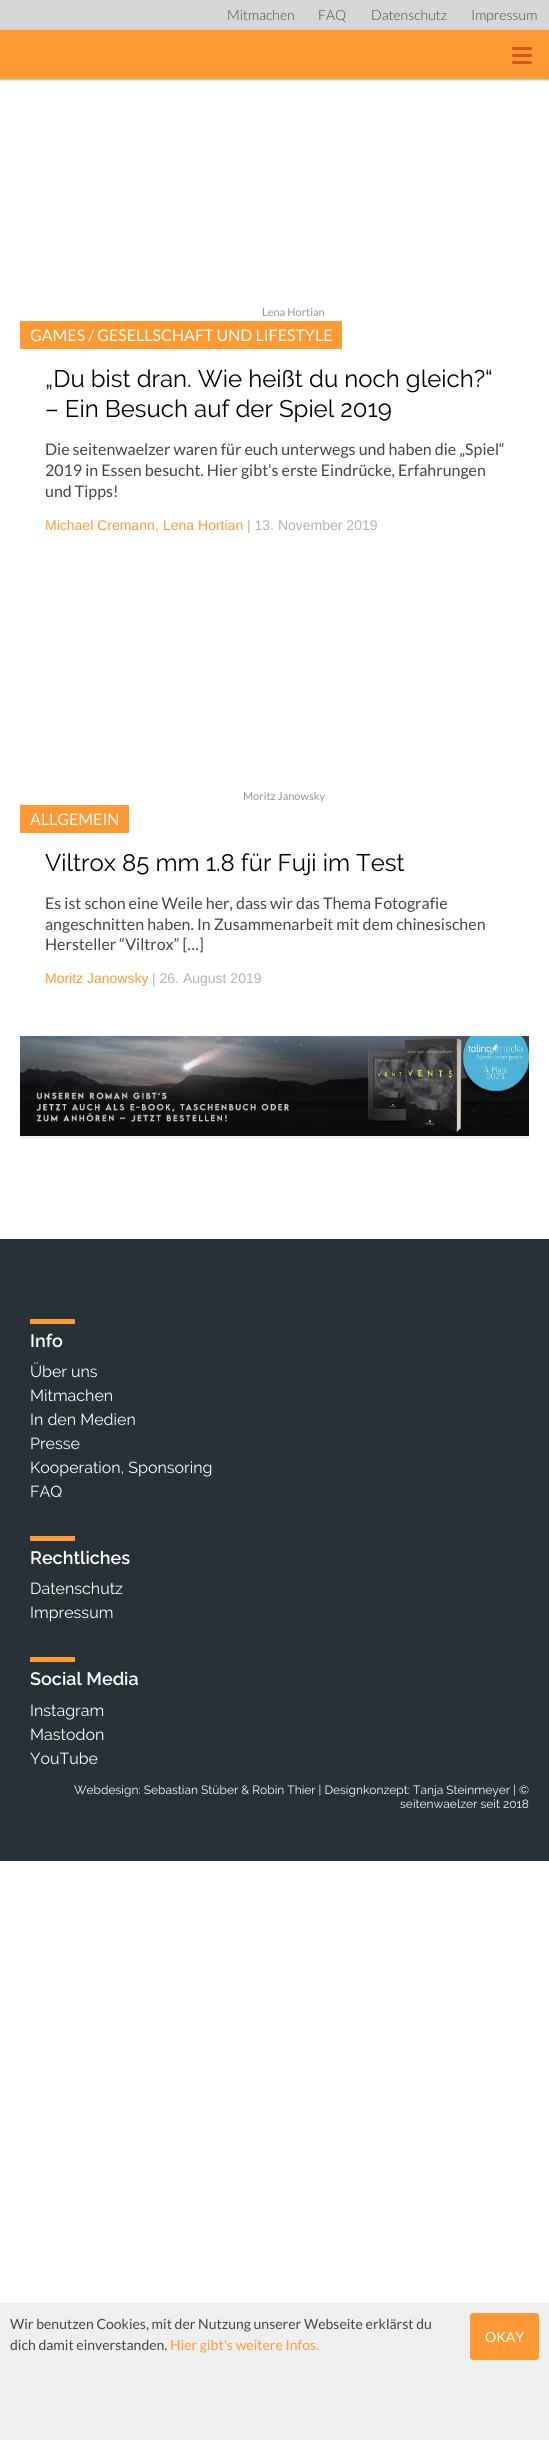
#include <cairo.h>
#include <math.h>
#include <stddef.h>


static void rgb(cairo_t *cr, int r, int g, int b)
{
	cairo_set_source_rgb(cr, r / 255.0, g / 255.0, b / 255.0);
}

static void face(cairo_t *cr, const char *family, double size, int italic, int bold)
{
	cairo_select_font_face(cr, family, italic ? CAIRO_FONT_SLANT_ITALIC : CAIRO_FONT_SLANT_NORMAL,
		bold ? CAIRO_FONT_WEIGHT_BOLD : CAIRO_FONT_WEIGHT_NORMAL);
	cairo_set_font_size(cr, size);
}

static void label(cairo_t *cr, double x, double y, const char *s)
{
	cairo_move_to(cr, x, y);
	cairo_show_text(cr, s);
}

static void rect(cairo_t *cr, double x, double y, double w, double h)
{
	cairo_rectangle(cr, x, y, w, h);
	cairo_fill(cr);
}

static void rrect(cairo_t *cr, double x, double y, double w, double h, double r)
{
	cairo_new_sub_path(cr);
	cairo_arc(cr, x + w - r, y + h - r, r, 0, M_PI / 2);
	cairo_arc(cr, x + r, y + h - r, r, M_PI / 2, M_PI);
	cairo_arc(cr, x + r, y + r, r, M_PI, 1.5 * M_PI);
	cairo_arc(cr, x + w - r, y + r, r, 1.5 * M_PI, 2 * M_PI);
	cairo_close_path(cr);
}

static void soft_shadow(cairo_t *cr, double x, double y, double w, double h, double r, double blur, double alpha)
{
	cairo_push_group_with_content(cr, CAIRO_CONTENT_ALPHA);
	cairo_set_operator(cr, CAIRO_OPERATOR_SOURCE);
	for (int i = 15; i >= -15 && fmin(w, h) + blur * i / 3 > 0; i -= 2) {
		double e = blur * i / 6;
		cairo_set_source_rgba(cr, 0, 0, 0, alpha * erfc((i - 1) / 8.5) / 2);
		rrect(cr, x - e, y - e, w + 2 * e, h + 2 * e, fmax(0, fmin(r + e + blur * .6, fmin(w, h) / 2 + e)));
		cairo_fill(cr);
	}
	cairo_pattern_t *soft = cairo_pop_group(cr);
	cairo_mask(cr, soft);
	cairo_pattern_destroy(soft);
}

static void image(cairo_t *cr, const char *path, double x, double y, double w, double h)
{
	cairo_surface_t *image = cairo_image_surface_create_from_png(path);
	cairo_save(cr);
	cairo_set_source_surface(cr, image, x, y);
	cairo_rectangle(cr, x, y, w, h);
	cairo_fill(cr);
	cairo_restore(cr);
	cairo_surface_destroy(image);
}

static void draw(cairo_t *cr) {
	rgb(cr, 255, 255, 255);
	cairo_paint(cr);
	rgb(cr, 212, 214, 215);
	rect(cr, 0, 0, 549, 30);
	face(cr, "Lato Light", 14, 0, 0);
	rgb(cr, 68, 68, 68);
	label(cr, 227, 20, "Mitmachen");
	label(cr, 318, 20, "FAQ");
	label(cr, 371, 20, "Datenschutz");
	label(cr, 471, 20, "Impressum");
	rgb(cr, 0, 0, 0);
	soft_shadow(cr, 0, 31, 549, 49, 0, 1, 0.24);
	soft_shadow(cr, 0, 31, 549, 49, 0, 1.5, 0.12);
	rgb(cr, 255, 153, 51);
	rect(cr, 0, 30, 549, 49);
	rgb(cr, 211, 83, 26);
	rrect(cr, 512, 47, 20, 3, 1.5);
	cairo_fill(cr);
	rrect(cr, 512, 54, 20, 3, 1.5);
	cairo_fill(cr);
	rrect(cr, 512, 61, 20, 3, 1.5);
	cairo_fill(cr);
	face(cr, "Lato", 11, 0, 0);
	rgb(cr, 144, 144, 144);
	label(cr, 262, 316, "Lena Hortian");
	rgb(cr, 255, 153, 51);
	rect(cr, 20, 321, 322, 28);
	face(cr, "Lato", 16, 0, 0);
	rgb(cr, 255, 255, 255);
	label(cr, 30, 341, "GAMES / GESELLSCHAFT UND LIFESTYLE");
	face(cr, "Raleway", 24, 0, 0);
	rgb(cr, 0, 0, 0);
	label(cr, 45, 387, "„Du bist dran. Wie heißt du noch gleich?“");
	label(cr, 45, 417, "– Ein Besuch auf der Spiel 2019");
	face(cr, "Lato", 16, 0, 0);
	rgb(cr, 68, 68, 68);
	label(cr, 45, 455, "Die seitenwaelzer waren für euch unterwegs und haben die „Spiel“");
	label(cr, 45, 476, "2019 in Essen besucht. Hier gibt’s erste Eindrücke, Erfahrungen");
	label(cr, 45, 497, "und Tipps!");
	face(cr, "Liberation Sans", 14, 0, 0);
	rgb(cr, 255, 153, 51);
	label(cr, 45, 530, "Michael Cremann");
	rgb(cr, 178, 178, 178);
	label(cr, 155, 530, ",");
	rgb(cr, 255, 153, 51);
	label(cr, 163, 530, "Lena Hortian");
	rgb(cr, 178, 178, 178);
	label(cr, 247, 530, "| 13. November 2019");
	face(cr, "Lato", 11, 0, 0);
	rgb(cr, 144, 144, 144);
	label(cr, 243, 800, "Moritz Janowsky");
	rgb(cr, 255, 153, 51);
	rect(cr, 20, 805, 109, 28);
	face(cr, "Lato", 16, 0, 0);
	rgb(cr, 255, 255, 255);
	label(cr, 30, 825, "ALLGEMEIN");
	face(cr, "Raleway", 24, 0, 0);
	rgb(cr, 0, 0, 0);
	label(cr, 45, 871, "Viltrox 85 mm 1.8 für Fuji im Test");
	face(cr, "Lato", 16, 0, 0);
	rgb(cr, 68, 68, 68);
	label(cr, 45, 909, "Es ist schon eine Weile her, dass wir das Thema Fotografie");
	label(cr, 45, 930, "angeschnitten haben. In Zusammenarbeit mit dem chinesischen");
	label(cr, 45, 950, "Hersteller “Viltrox” […]");
	face(cr, "Liberation Sans", 14, 0, 0);
	rgb(cr, 255, 153, 51);
	label(cr, 45, 983, "Moritz Janowsky");
	rgb(cr, 178, 178, 178);
	label(cr, 152, 983, "| 26. August 2019");
	rgb(cr, 239, 239, 239);
	rect(cr, 20, 1136, 509, 3);
	image(cr, "image0.png", 20, 1036, 509, 100);
	rgb(cr, 38, 50, 56);
	rect(cr, 0, 1239, 549, 622);
	rgb(cr, 255, 153, 51);
	rect(cr, 30, 1319, 45, 5);
	face(cr, "Raleway SemiBold", 18, 0, 0);
	rgb(cr, 255, 255, 255);
	label(cr, 30, 1347, "Info");
	face(cr, "Raleway", 16, 0, 0);
	label(cr, 30, 1377, "Über uns");
	label(cr, 30, 1401, "Mitmachen");
	label(cr, 30, 1425, "In den Medien");
	label(cr, 30, 1449, "Presse");
	label(cr, 30, 1473, "Kooperation, Sponsoring");
	label(cr, 30, 1497, "FAQ");
	rgb(cr, 255, 153, 51);
	rect(cr, 30, 1536, 45, 5);
	face(cr, "Raleway SemiBold", 18, 0, 0);
	rgb(cr, 255, 255, 255);
	label(cr, 30, 1564, "Rechtliches");
	face(cr, "Raleway", 16, 0, 0);
	label(cr, 30, 1594, "Datenschutz");
	label(cr, 30, 1618, "Impressum");
	rgb(cr, 255, 153, 51);
	rect(cr, 30, 1657, 45, 5);
	face(cr, "Raleway SemiBold", 18, 0, 0);
	rgb(cr, 255, 255, 255);
	label(cr, 30, 1685, "Social Media");
	face(cr, "Raleway", 16, 0, 0);
	label(cr, 30, 1716, "Instagram");
	label(cr, 30, 1740, "Mastodon");
	label(cr, 30, 1764, "YouTube");
	face(cr, "Raleway", 12, 0, 0);
	label(cr, 74, 1794, "Webdesign: Sebastian Stüber & Robin Thier | Designkonzept: Tanja Steinmeyer | ©");
	label(cr, 400, 1808, "seitenwaelzer seit 2018");
	rgb(cr, 239, 239, 239);
	rect(cr, 0, 2303, 549, 137);
	face(cr, "Lato", 14, 0, 0);
	rgb(cr, 68, 68, 68);
	label(cr, 10, 2329, "Wir benutzen Cookies, mit der Nutzung unserer Webseite erklärst du");
	label(cr, 10, 2350, "dich damit einverstanden.");
	rgb(cr, 255, 153, 51);
	label(cr, 170, 2350, "Hier gibt's weitere Infos.");
	rrect(cr, 470, 2313, 69, 47, 3);
	cairo_fill(cr);
	rgb(cr, 255, 255, 255);
	label(cr, 485, 2342, "OKAY");
}

int main(void) {
	cairo_surface_t *surface = cairo_image_surface_create(CAIRO_FORMAT_RGB24, 549, 2440);
	cairo_t *cr = cairo_create(surface);
	cairo_font_options_t *options = cairo_font_options_create();
	cairo_font_options_set_hint_metrics(options, CAIRO_HINT_METRICS_OFF);
	cairo_font_options_set_hint_style(options, CAIRO_HINT_STYLE_NONE);
	cairo_set_font_options(cr, options);
	cairo_set_miter_limit(cr, 4);
	draw(cr);
	cairo_surface_write_to_png(surface, "render.png");
	cairo_font_options_destroy(options);
	cairo_destroy(cr);
	cairo_surface_destroy(surface);
	return 0;
}
